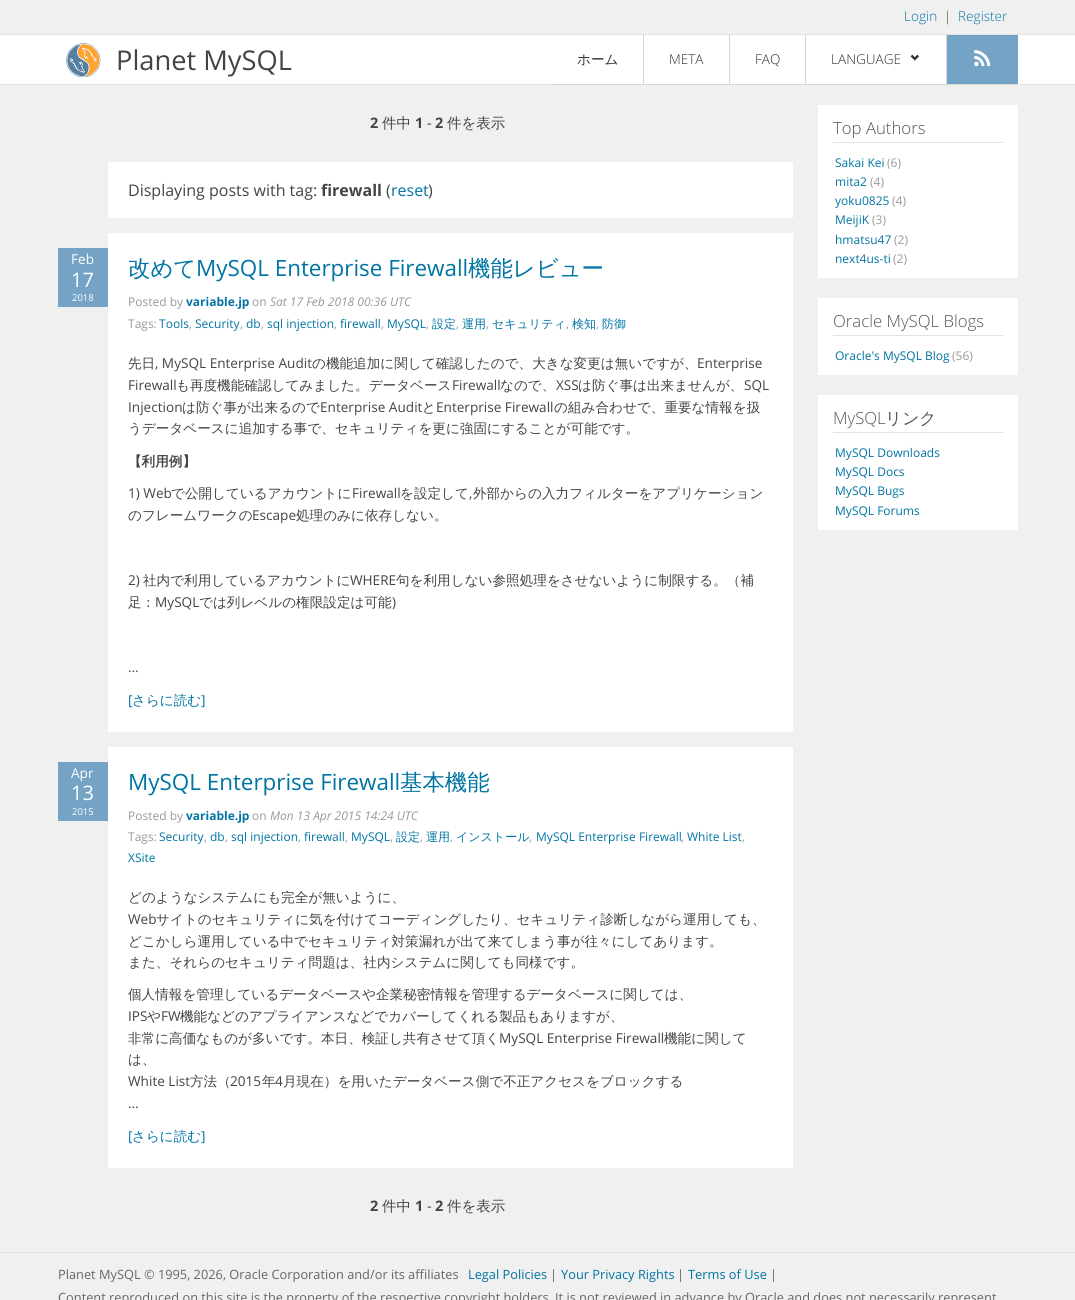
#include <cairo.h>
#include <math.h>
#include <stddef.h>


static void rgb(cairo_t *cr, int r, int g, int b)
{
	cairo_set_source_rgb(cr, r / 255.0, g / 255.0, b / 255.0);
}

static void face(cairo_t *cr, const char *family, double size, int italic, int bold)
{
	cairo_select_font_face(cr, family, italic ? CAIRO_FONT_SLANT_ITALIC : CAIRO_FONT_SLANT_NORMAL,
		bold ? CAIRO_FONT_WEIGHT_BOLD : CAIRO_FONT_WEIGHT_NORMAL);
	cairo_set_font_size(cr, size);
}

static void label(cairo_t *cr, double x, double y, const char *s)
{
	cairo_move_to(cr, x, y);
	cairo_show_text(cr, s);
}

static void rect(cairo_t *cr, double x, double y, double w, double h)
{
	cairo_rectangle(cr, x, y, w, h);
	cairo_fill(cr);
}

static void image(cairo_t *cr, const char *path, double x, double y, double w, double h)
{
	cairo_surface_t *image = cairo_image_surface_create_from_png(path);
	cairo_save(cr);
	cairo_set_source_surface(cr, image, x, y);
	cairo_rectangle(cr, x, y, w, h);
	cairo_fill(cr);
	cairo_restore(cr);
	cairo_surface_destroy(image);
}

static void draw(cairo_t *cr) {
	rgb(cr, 240, 240, 240);
	cairo_paint(cr);
	rgb(cr, 226, 226, 226);
	rect(cr, 0, 34, 1075, 1);
	face(cr, "Open Sans Light", 13.6, 0, 0);
	rgb(cr, 0, 116, 163);
	label(cr, 904, 21, "Login");
	rgb(cr, 68, 68, 68);
	label(cr, 944, 21, "|");
	rgb(cr, 0, 116, 163);
	label(cr, 958, 21, "Register");
	rgb(cr, 255, 255, 255);
	rect(cr, 0, 35, 1075, 49);
	rgb(cr, 226, 226, 226);
	rect(cr, 0, 84, 1075, 1);
	image(cr, "image0.png", 66, 43, 35, 34);
	face(cr, "Open Sans", 27.25, 0, 0);
	rgb(cr, 68, 68, 68);
	label(cr, 116, 70, "Planet MySQL");
	rgb(cr, 210, 214, 213);
	rect(cr, 552, 84, 466, 1);
	face(cr, "WenQuanYi Zen Hei Medium", 13.6, 0, 0);
	rgb(cr, 49, 49, 49);
	label(cr, 577, 64, "ホーム");
	rgb(cr, 210, 214, 213);
	rect(cr, 643, 35, 1, 50);
	face(cr, "Open Sans Light", 13.6, 0, 0);
	rgb(cr, 49, 49, 49);
	label(cr, 669, 64, "META");
	rgb(cr, 210, 214, 213);
	rect(cr, 729, 35, 1, 50);
	rgb(cr, 49, 49, 49);
	label(cr, 755, 64, "FAQ");
	rgb(cr, 210, 214, 213);
	rect(cr, 805, 35, 1, 50);
	rgb(cr, 49, 49, 49);
	label(cr, 831, 64, "LANGUAGE");
	image(cr, "image1.png", 910, 54, 9, 7);
	rgb(cr, 210, 214, 213);
	rect(cr, 946, 35, 1, 50);
	rgb(cr, 116, 163, 198);
	rect(cr, 947, 35, 71, 49);
	image(cr, "image2.png", 974, 50, 17, 17);
	face(cr, "Open Sans", 14.5, 0, 1);
	rgb(cr, 68, 68, 68);
	label(cr, 370, 128, "2");
	face(cr, "WenQuanYi Zen Hei Medium", 14.5, 0, 0);
	label(cr, 382, 128, "件中");
	face(cr, "Open Sans", 14.5, 0, 1);
	label(cr, 415, 128, "1");
	face(cr, "Open Sans", 14.5, 0, 0);
	label(cr, 427, 128, "-");
	face(cr, "Open Sans", 14.5, 0, 1);
	label(cr, 435, 128, "2");
	face(cr, "WenQuanYi Zen Hei Medium", 14.5, 0, 0);
	label(cr, 447, 128, "件を表示");
	rgb(cr, 255, 255, 255);
	rect(cr, 108, 162, 685, 56);
	face(cr, "Open Sans", 16, 0, 0);
	rgb(cr, 68, 68, 68);
	label(cr, 128, 196, "Displaying posts with tag:");
	face(cr, "Open Sans", 16, 0, 1);
	label(cr, 321, 196, "firewall");
	face(cr, "Open Sans", 16, 0, 0);
	label(cr, 386, 196, "(");
	rgb(cr, 0, 116, 163);
	label(cr, 391, 196, "reset");
	rgb(cr, 68, 68, 68);
	label(cr, 428, 196, ")");
	rgb(cr, 255, 255, 255);
	rect(cr, 108, 233, 685, 499);
	rgb(cr, 116, 163, 198);
	rect(cr, 58, 248, 50, 59);
	face(cr, "Open Sans", 13.6, 0, 0);
	rgb(cr, 255, 255, 255);
	label(cr, 71, 264, "Feb");
	face(cr, "Open Sans", 20, 0, 0);
	label(cr, 71, 287, "17");
	face(cr, "Open Sans", 9.5, 0, 0);
	label(cr, 72, 301, "2018");
	face(cr, "WenQuanYi Zen Hei Medium", 22.4, 0, 0);
	rgb(cr, 0, 116, 163);
	label(cr, 128, 276, "改めて");
	face(cr, "Open Sans", 22.4, 0, 0);
	label(cr, 196, 276, "MySQL Enterprise Firewall");
	face(cr, "WenQuanYi Zen Hei Medium", 22.4, 0, 0);
	label(cr, 468, 276, "機能レビュー");
	face(cr, "Open Sans", 12, 0, 0);
	rgb(cr, 153, 153, 153);
	label(cr, 128, 306, "Posted by");
	face(cr, "Open Sans", 12, 0, 1);
	rgb(cr, 0, 116, 163);
	label(cr, 186, 306, "variable.jp");
	face(cr, "Open Sans", 12, 0, 0);
	rgb(cr, 153, 153, 153);
	label(cr, 252, 306, "on");
	face(cr, "Open Sans", 12, 1, 0);
	label(cr, 270, 306, "Sat 17 Feb 2018 00:36 UTC");
	face(cr, "Open Sans", 12, 0, 0);
	label(cr, 128, 328, "Tags:");
	rgb(cr, 0, 116, 163);
	label(cr, 159, 328, "Tools");
	rgb(cr, 153, 153, 153);
	label(cr, 189, 328, ",");
	rgb(cr, 0, 116, 163);
	label(cr, 195, 328, "Security");
	rgb(cr, 153, 153, 153);
	label(cr, 240, 328, ",");
	rgb(cr, 0, 116, 163);
	label(cr, 246, 328, "db");
	rgb(cr, 153, 153, 153);
	label(cr, 261, 328, ",");
	rgb(cr, 0, 116, 163);
	label(cr, 267, 328, "sql injection");
	rgb(cr, 153, 153, 153);
	label(cr, 334, 328, ",");
	rgb(cr, 0, 116, 163);
	label(cr, 340, 328, "firewall");
	rgb(cr, 153, 153, 153);
	label(cr, 381, 328, ",");
	rgb(cr, 0, 116, 163);
	label(cr, 387, 328, "MySQL");
	rgb(cr, 153, 153, 153);
	label(cr, 426, 328, ",");
	face(cr, "WenQuanYi Zen Hei Medium", 12, 0, 0);
	rgb(cr, 0, 116, 163);
	label(cr, 432, 328, "設定");
	face(cr, "Open Sans", 12, 0, 0);
	rgb(cr, 153, 153, 153);
	label(cr, 456, 328, ",");
	face(cr, "WenQuanYi Zen Hei Medium", 12, 0, 0);
	rgb(cr, 0, 116, 163);
	label(cr, 462, 328, "運用");
	face(cr, "Open Sans", 12, 0, 0);
	rgb(cr, 153, 153, 153);
	label(cr, 486, 328, ",");
	face(cr, "WenQuanYi Zen Hei Medium", 12, 0, 0);
	rgb(cr, 0, 116, 163);
	label(cr, 492, 328, "セキュリティ");
	face(cr, "Open Sans", 12, 0, 0);
	rgb(cr, 153, 153, 153);
	label(cr, 566, 328, ",");
	face(cr, "WenQuanYi Zen Hei Medium", 12, 0, 0);
	rgb(cr, 0, 116, 163);
	label(cr, 572, 328, "検知");
	face(cr, "Open Sans", 12, 0, 0);
	rgb(cr, 153, 153, 153);
	label(cr, 596, 328, ",");
	face(cr, "WenQuanYi Zen Hei Medium", 12, 0, 0);
	rgb(cr, 0, 116, 163);
	label(cr, 602, 328, "防御");
	face(cr, "WenQuanYi Zen Hei Medium", 13.6, 0, 0);
	rgb(cr, 68, 68, 68);
	label(cr, 128, 368, "先日");
	face(cr, "Open Sans", 13.6, 0, 0);
	label(cr, 155, 368, ", MySQL Enterprise Audit");
	face(cr, "WenQuanYi Zen Hei Medium", 13.6, 0, 0);
	label(cr, 312, 368, "の機能追加に関して確認したので、大きな変更は無いですが、");
	face(cr, "Open Sans", 13.6, 0, 0);
	label(cr, 697, 368, "Enterprise");
	label(cr, 128, 390, "Firewall");
	face(cr, "WenQuanYi Zen Hei Medium", 13.6, 0, 0);
	label(cr, 176, 390, "も再度機能確認してみました。データベース");
	face(cr, "Open Sans", 13.6, 0, 0);
	label(cr, 452, 390, "Firewall");
	face(cr, "WenQuanYi Zen Hei Medium", 13.6, 0, 0);
	label(cr, 500, 390, "なので、");
	face(cr, "Open Sans", 13.6, 0, 0);
	label(cr, 556, 390, "XSS");
	face(cr, "WenQuanYi Zen Hei Medium", 13.6, 0, 0);
	label(cr, 578, 390, "は防ぐ事は出来ませんが、");
	face(cr, "Open Sans", 13.6, 0, 0);
	label(cr, 744, 390, "SQL");
	label(cr, 128, 412, "Injection");
	face(cr, "WenQuanYi Zen Hei Medium", 13.6, 0, 0);
	label(cr, 182, 412, "は防ぐ事が出来るので");
	face(cr, "Open Sans", 13.6, 0, 0);
	label(cr, 320, 412, "Enterprise Audit");
	face(cr, "WenQuanYi Zen Hei Medium", 13.6, 0, 0);
	label(cr, 422, 412, "と");
	face(cr, "Open Sans", 13.6, 0, 0);
	label(cr, 436, 412, "Enterprise Firewall");
	face(cr, "WenQuanYi Zen Hei Medium", 13.6, 0, 0);
	label(cr, 554, 412, "の組み合わせで、重要な情報を扱");
	label(cr, 128, 433, "うデータベースに追加する事で、セキュリティを更に強固にすることが可能です。");
	face(cr, "WenQuanYi Zen Hei", 13.6, 0, 1);
	label(cr, 128, 466, "【利用例】");
	face(cr, "Open Sans", 13.6, 0, 0);
	label(cr, 128, 498, "1) Web");
	face(cr, "WenQuanYi Zen Hei Medium", 13.6, 0, 0);
	label(cr, 171, 498, "で公開しているアカウントに");
	face(cr, "Open Sans", 13.6, 0, 0);
	label(cr, 352, 498, "Firewall");
	face(cr, "WenQuanYi Zen Hei Medium", 13.6, 0, 0);
	label(cr, 400, 498, "を設定して");
	face(cr, "Open Sans", 13.6, 0, 0);
	label(cr, 469, 498, ",");
	face(cr, "WenQuanYi Zen Hei Medium", 13.6, 0, 0);
	label(cr, 473, 498, "外部からの入力フィルターをアプリケーション");
	label(cr, 128, 520, "のフレームワークの");
	face(cr, "Open Sans", 13.6, 0, 0);
	label(cr, 252, 520, "Escape");
	face(cr, "WenQuanYi Zen Hei Medium", 13.6, 0, 0);
	label(cr, 296, 520, "処理のみに依存しない。");
	face(cr, "Open Sans", 13.6, 0, 0);
	label(cr, 128, 585, "2)");
	face(cr, "WenQuanYi Zen Hei Medium", 13.6, 0, 0);
	label(cr, 143, 585, "社内で利用しているアカウントに");
	face(cr, "Open Sans", 13.6, 0, 0);
	label(cr, 350, 585, "WHERE");
	face(cr, "WenQuanYi Zen Hei Medium", 13.6, 0, 0);
	label(cr, 396, 585, "句を利用しない参照処理をさせないように制限する。（補");
	label(cr, 128, 607, "足：");
	face(cr, "Open Sans", 13.6, 0, 0);
	label(cr, 155, 607, "MySQL");
	face(cr, "WenQuanYi Zen Hei Medium", 13.6, 0, 0);
	label(cr, 199, 607, "では列レベルの権限設定は可能");
	face(cr, "Open Sans", 13.6, 0, 0);
	label(cr, 392, 607, ")");
	label(cr, 128, 672, "…");
	rgb(cr, 0, 116, 163);
	label(cr, 128, 705, "[");
	face(cr, "WenQuanYi Zen Hei Medium", 13.6, 0, 0);
	label(cr, 132, 705, "さらに読む");
	face(cr, "Open Sans", 13.6, 0, 0);
	label(cr, 201, 705, "]");
	rgb(cr, 255, 255, 255);
	rect(cr, 108, 747, 685, 421);
	rgb(cr, 116, 163, 198);
	rect(cr, 58, 762, 50, 59);
	rgb(cr, 255, 255, 255);
	label(cr, 71, 778, "Apr");
	face(cr, "Open Sans", 20, 0, 0);
	label(cr, 71, 800, "13");
	face(cr, "Open Sans", 9.5, 0, 0);
	label(cr, 72, 815, "2015");
	face(cr, "Open Sans", 22.4, 0, 0);
	rgb(cr, 0, 116, 163);
	label(cr, 128, 790, "MySQL Enterprise Firewall");
	face(cr, "WenQuanYi Zen Hei Medium", 22.4, 0, 0);
	label(cr, 400, 790, "基本機能");
	face(cr, "Open Sans", 12, 0, 0);
	rgb(cr, 153, 153, 153);
	label(cr, 128, 820, "Posted by");
	face(cr, "Open Sans", 12, 0, 1);
	rgb(cr, 0, 116, 163);
	label(cr, 186, 820, "variable.jp");
	face(cr, "Open Sans", 12, 0, 0);
	rgb(cr, 153, 153, 153);
	label(cr, 252, 820, "on");
	face(cr, "Open Sans", 12, 1, 0);
	label(cr, 270, 820, "Mon 13 Apr 2015 14:24 UTC");
	face(cr, "Open Sans", 12, 0, 0);
	label(cr, 128, 841, "Tags:");
	rgb(cr, 0, 116, 163);
	label(cr, 159, 841, "Security");
	rgb(cr, 153, 153, 153);
	label(cr, 204, 841, ",");
	rgb(cr, 0, 116, 163);
	label(cr, 210, 841, "db");
	rgb(cr, 153, 153, 153);
	label(cr, 225, 841, ",");
	rgb(cr, 0, 116, 163);
	label(cr, 231, 841, "sql injection");
	rgb(cr, 153, 153, 153);
	label(cr, 298, 841, ",");
	rgb(cr, 0, 116, 163);
	label(cr, 304, 841, "firewall");
	rgb(cr, 153, 153, 153);
	label(cr, 345, 841, ",");
	rgb(cr, 0, 116, 163);
	label(cr, 351, 841, "MySQL");
	rgb(cr, 153, 153, 153);
	label(cr, 390, 841, ",");
	face(cr, "WenQuanYi Zen Hei Medium", 12, 0, 0);
	rgb(cr, 0, 116, 163);
	label(cr, 396, 841, "設定");
	face(cr, "Open Sans", 12, 0, 0);
	rgb(cr, 153, 153, 153);
	label(cr, 420, 841, ",");
	face(cr, "WenQuanYi Zen Hei Medium", 12, 0, 0);
	rgb(cr, 0, 116, 163);
	label(cr, 426, 841, "運用");
	face(cr, "Open Sans", 12, 0, 0);
	rgb(cr, 153, 153, 153);
	label(cr, 450, 841, ",");
	face(cr, "WenQuanYi Zen Hei Medium", 12, 0, 0);
	rgb(cr, 0, 116, 163);
	label(cr, 456, 841, "インストール");
	face(cr, "Open Sans", 12, 0, 0);
	rgb(cr, 153, 153, 153);
	label(cr, 529, 841, ",");
	rgb(cr, 0, 116, 163);
	label(cr, 536, 841, "MySQL Enterprise Firewall");
	rgb(cr, 153, 153, 153);
	label(cr, 681, 841, ",");
	rgb(cr, 0, 116, 163);
	label(cr, 687, 841, "White List");
	rgb(cr, 153, 153, 153);
	label(cr, 742, 841, ",");
	rgb(cr, 0, 116, 163);
	label(cr, 128, 862, "XSite");
	face(cr, "WenQuanYi Zen Hei Medium", 13.6, 0, 0);
	rgb(cr, 68, 68, 68);
	label(cr, 128, 902, "どのようなシステムにも完全が無いように、");
	face(cr, "Open Sans", 13.6, 0, 0);
	label(cr, 128, 924, "Web");
	face(cr, "WenQuanYi Zen Hei Medium", 13.6, 0, 0);
	label(cr, 156, 924, "サイトのセキュリティに気を付けてコーディングしたり、セキュリティ診断しながら運用しても、");
	label(cr, 128, 946, "どこかしら運用している中でセキュリティ対策漏れが出て来てしまう事が往々にしてあります。");
	label(cr, 128, 967, "また、それらのセキュリティ問題は、社内システムに関しても同様です。");
	label(cr, 128, 999, "個人情報を管理しているデータベースや企業秘密情報を管理するデータベースに関しては、");
	face(cr, "Open Sans", 13.6, 0, 0);
	label(cr, 128, 1021, "IPS");
	face(cr, "WenQuanYi Zen Hei Medium", 13.6, 0, 0);
	label(cr, 147, 1021, "や");
	face(cr, "Open Sans", 13.6, 0, 0);
	label(cr, 161, 1021, "FW");
	face(cr, "WenQuanYi Zen Hei Medium", 13.6, 0, 0);
	label(cr, 180, 1021, "機能などのアプライアンスなどでカバーしてくれる製品もありますが、");
	label(cr, 128, 1043, "非常に高価なものが多いです。本日、検証し共有させて頂く");
	face(cr, "Open Sans", 13.6, 0, 0);
	label(cr, 499, 1043, "MySQL Enterprise Firewall");
	face(cr, "WenQuanYi Zen Hei Medium", 13.6, 0, 0);
	label(cr, 664, 1043, "機能に関して");
	label(cr, 128, 1064, "は、");
	face(cr, "Open Sans", 13.6, 0, 0);
	label(cr, 128, 1086, "White List");
	face(cr, "WenQuanYi Zen Hei Medium", 13.6, 0, 0);
	label(cr, 190, 1086, "方法（");
	face(cr, "Open Sans", 13.6, 0, 0);
	label(cr, 230, 1086, "2015");
	face(cr, "WenQuanYi Zen Hei Medium", 13.6, 0, 0);
	label(cr, 262, 1086, "年");
	face(cr, "Open Sans", 13.6, 0, 0);
	label(cr, 275, 1086, "4");
	face(cr, "WenQuanYi Zen Hei Medium", 13.6, 0, 0);
	label(cr, 283, 1086, "月現在）を用いたデータベース側で不正アクセスをブロックする");
	face(cr, "Open Sans", 13.6, 0, 0);
	label(cr, 128, 1108, "…");
	rgb(cr, 0, 116, 163);
	label(cr, 128, 1141, "[");
	face(cr, "WenQuanYi Zen Hei Medium", 13.6, 0, 0);
	label(cr, 132, 1141, "さらに読む");
	face(cr, "Open Sans", 13.6, 0, 0);
	label(cr, 201, 1141, "]");
	face(cr, "Open Sans", 14.5, 0, 1);
	rgb(cr, 68, 68, 68);
	label(cr, 370, 1211, "2");
	face(cr, "WenQuanYi Zen Hei Medium", 14.5, 0, 0);
	label(cr, 382, 1211, "件中");
	face(cr, "Open Sans", 14.5, 0, 1);
	label(cr, 415, 1211, "1");
	face(cr, "Open Sans", 14.5, 0, 0);
	label(cr, 427, 1211, "-");
	face(cr, "Open Sans", 14.5, 0, 1);
	label(cr, 435, 1211, "2");
	face(cr, "WenQuanYi Zen Hei Medium", 14.5, 0, 0);
	label(cr, 447, 1211, "件を表示");
	rgb(cr, 255, 255, 255);
	rect(cr, 818, 105, 200, 173);
	rgb(cr, 226, 226, 226);
	rect(cr, 833, 142, 170, 1);
	face(cr, "Open Sans Light", 16.75, 0, 0);
	rgb(cr, 85, 85, 85);
	label(cr, 833, 134, "Top Authors");
	face(cr, "Open Sans", 12, 0, 0);
	rgb(cr, 0, 116, 163);
	label(cr, 835, 167, "Sakai Kei");
	rgb(cr, 153, 153, 153);
	label(cr, 887, 167, "(6)");
	rgb(cr, 0, 116, 163);
	label(cr, 835, 186, "mita2");
	rgb(cr, 153, 153, 153);
	label(cr, 870, 186, "(4)");
	rgb(cr, 0, 116, 163);
	label(cr, 835, 205, "yoku0825");
	rgb(cr, 153, 153, 153);
	label(cr, 892, 205, "(4)");
	rgb(cr, 0, 116, 163);
	label(cr, 835, 224, "MeijiK");
	rgb(cr, 153, 153, 153);
	label(cr, 872, 224, "(3)");
	rgb(cr, 0, 116, 163);
	label(cr, 835, 244, "hmatsu47");
	rgb(cr, 153, 153, 153);
	label(cr, 894, 244, "(2)");
	rgb(cr, 0, 116, 163);
	label(cr, 835, 263, "next4us-ti");
	rgb(cr, 153, 153, 153);
	label(cr, 893, 263, "(2)");
	rgb(cr, 255, 255, 255);
	rect(cr, 818, 298, 200, 77);
	rgb(cr, 226, 226, 226);
	rect(cr, 833, 335, 170, 1);
	face(cr, "Open Sans Light", 16.75, 0, 0);
	rgb(cr, 85, 85, 85);
	label(cr, 833, 327, "Oracle MySQL Blogs");
	face(cr, "Open Sans", 12, 0, 0);
	rgb(cr, 0, 116, 163);
	label(cr, 835, 360, "Oracle's MySQL Blog");
	rgb(cr, 153, 153, 153);
	label(cr, 952, 360, "(56)");
	rgb(cr, 255, 255, 255);
	rect(cr, 818, 395, 200, 135);
	rgb(cr, 226, 226, 226);
	rect(cr, 833, 432, 170, 1);
	face(cr, "Open Sans Light", 16.75, 0, 0);
	rgb(cr, 85, 85, 85);
	label(cr, 833, 424, "MySQL");
	face(cr, "WenQuanYi Zen Hei Medium", 16.75, 0, 0);
	label(cr, 885, 424, "リンク");
	face(cr, "Open Sans", 12, 0, 0);
	rgb(cr, 0, 116, 163);
	label(cr, 835, 457, "MySQL Downloads");
	label(cr, 835, 476, "MySQL Docs");
	label(cr, 835, 495, "MySQL Bugs");
	label(cr, 835, 515, "MySQL Forums");
	rgb(cr, 226, 226, 226);
	rect(cr, 0, 1252, 1075, 1);
	face(cr, "Open Sans", 12.8, 0, 0);
	rgb(cr, 102, 102, 102);
	label(cr, 58, 1279, "Planet MySQL © 1995, 2026, Oracle Corporation and/or its affiliates");
	rgb(cr, 0, 116, 163);
	label(cr, 468, 1279, "Legal Policies");
	rgb(cr, 102, 102, 102);
	label(cr, 550, 1279, "|");
	rgb(cr, 0, 116, 163);
	label(cr, 561, 1279, "Your Privacy Rights");
	rgb(cr, 102, 102, 102);
	label(cr, 677, 1279, "|");
	rgb(cr, 0, 116, 163);
	label(cr, 688, 1279, "Terms of Use");
	rgb(cr, 102, 102, 102);
	label(cr, 770, 1279, "|");
	label(cr, 58, 1302, "Content reproduced on this site is the property of the respective copyright holders");
	label(cr, 555, 1302, "It is not reviewed in advance by Oracle and does not necessarily represent");
}

int main(void) {
	cairo_surface_t *surface = cairo_image_surface_create(CAIRO_FORMAT_RGB24, 1075, 1300);
	cairo_t *cr = cairo_create(surface);
	cairo_font_options_t *options = cairo_font_options_create();
	cairo_font_options_set_hint_metrics(options, CAIRO_HINT_METRICS_OFF);
	cairo_font_options_set_hint_style(options, CAIRO_HINT_STYLE_NONE);
	cairo_set_font_options(cr, options);
	cairo_set_miter_limit(cr, 4);
	draw(cr);
	cairo_surface_write_to_png(surface, "render.png");
	cairo_font_options_destroy(options);
	cairo_destroy(cr);
	cairo_surface_destroy(surface);
	return 0;
}
